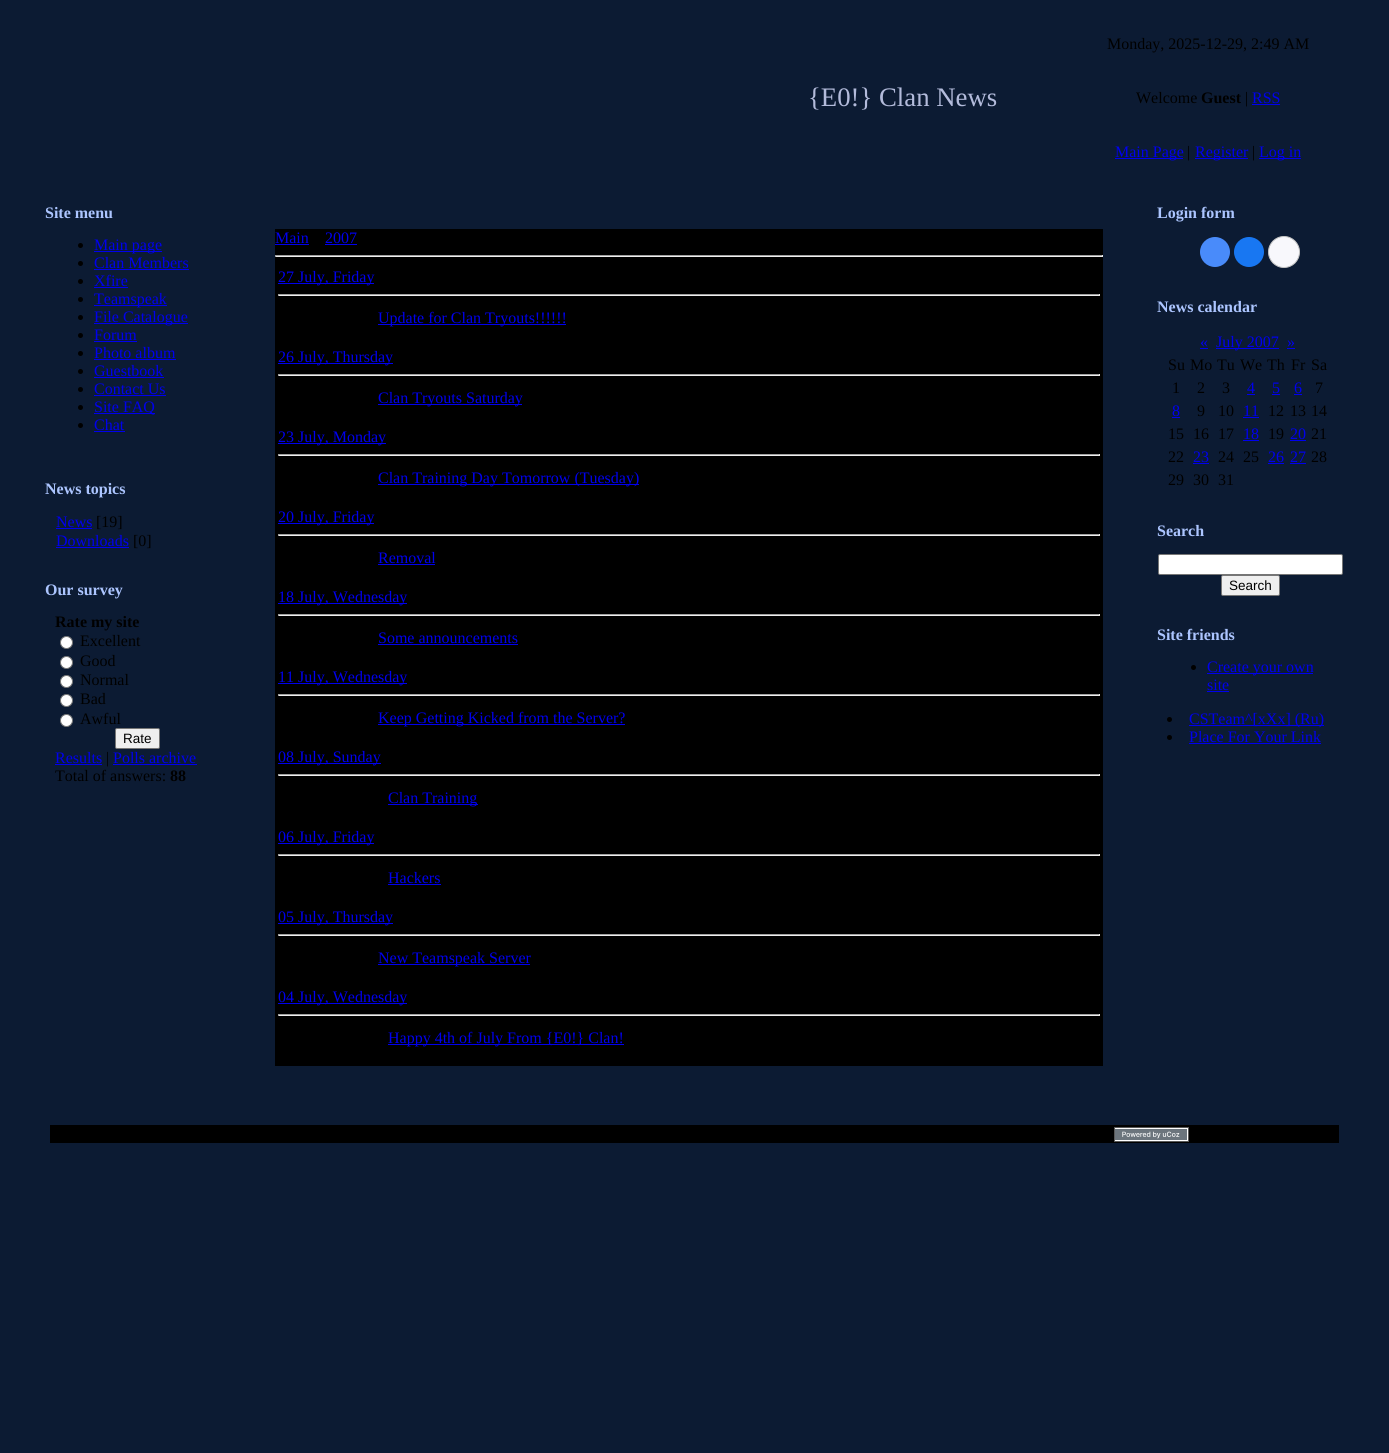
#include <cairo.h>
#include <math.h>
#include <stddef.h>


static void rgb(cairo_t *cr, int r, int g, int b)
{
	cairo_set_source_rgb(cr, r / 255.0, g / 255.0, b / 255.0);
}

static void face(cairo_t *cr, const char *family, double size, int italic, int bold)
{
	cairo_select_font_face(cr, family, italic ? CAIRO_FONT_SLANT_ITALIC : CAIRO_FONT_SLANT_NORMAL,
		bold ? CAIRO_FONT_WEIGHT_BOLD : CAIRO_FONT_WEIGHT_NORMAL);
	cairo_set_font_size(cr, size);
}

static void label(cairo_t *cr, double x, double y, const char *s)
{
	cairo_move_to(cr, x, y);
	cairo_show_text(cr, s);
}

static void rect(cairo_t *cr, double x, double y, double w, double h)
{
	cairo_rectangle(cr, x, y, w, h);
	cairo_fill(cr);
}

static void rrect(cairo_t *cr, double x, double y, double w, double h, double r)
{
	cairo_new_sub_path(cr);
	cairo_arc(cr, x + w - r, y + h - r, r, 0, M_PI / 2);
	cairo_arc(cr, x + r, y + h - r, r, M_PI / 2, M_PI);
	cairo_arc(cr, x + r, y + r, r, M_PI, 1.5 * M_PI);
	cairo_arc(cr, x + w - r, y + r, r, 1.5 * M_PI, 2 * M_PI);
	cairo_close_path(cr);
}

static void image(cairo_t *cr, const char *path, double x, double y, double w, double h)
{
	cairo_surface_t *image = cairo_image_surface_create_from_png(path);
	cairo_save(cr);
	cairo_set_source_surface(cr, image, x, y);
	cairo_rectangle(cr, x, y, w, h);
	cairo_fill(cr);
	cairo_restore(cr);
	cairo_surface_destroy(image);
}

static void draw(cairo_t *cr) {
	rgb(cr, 12, 27, 51);
	cairo_paint(cr);
	face(cr, "Liberation Serif", 26.75, 0, 0);
	rgb(cr, 179, 187, 219);
	label(cr, 808, 106, "{E0!} Clan News");
	face(cr, "Liberation Serif", 16, 0, 0);
	rgb(cr, 0, 0, 0);
	label(cr, 1107, 49, "Monday, 2025-12-29, 2:49 AM");
	label(cr, 1136, 103, "Welcome");
	face(cr, "Liberation Serif", 16, 0, 1);
	label(cr, 1201, 103, "Guest");
	face(cr, "Liberation Serif", 16, 0, 0);
	label(cr, 1245, 103, "|");
	rgb(cr, 0, 0, 238);
	label(cr, 1252, 103, "RSS");
	rect(cr, 1252, 104, 28, 1);
	rect(cr, 1115, 158, 68, 1);
	label(cr, 1115, 157, "Main Page");
	rgb(cr, 0, 0, 0);
	label(cr, 1187, 157, "|");
	rgb(cr, 0, 0, 238);
	rect(cr, 1195, 158, 53, 1);
	label(cr, 1195, 157, "Register");
	rgb(cr, 0, 0, 0);
	label(cr, 1252, 157, "|");
	rgb(cr, 0, 0, 238);
	rect(cr, 1259, 158, 42, 1);
	label(cr, 1259, 157, "Log in");
	face(cr, "Liberation Serif", 16, 0, 1);
	rgb(cr, 172, 197, 255);
	label(cr, 45, 218, "Site menu");
	rgb(cr, 0, 0, 0);
	cairo_new_path(cr);
	cairo_arc(cr, 80.5, 245.5, 2.5, 0, 2 * M_PI);
	cairo_fill(cr);
	rgb(cr, 0, 0, 238);
	rect(cr, 94, 251, 68, 1);
	face(cr, "Liberation Serif", 16, 0, 0);
	label(cr, 94, 250, "Main page");
	rgb(cr, 0, 0, 0);
	cairo_new_path(cr);
	cairo_arc(cr, 80.5, 263.5, 2.5, 0, 2 * M_PI);
	cairo_fill(cr);
	rgb(cr, 0, 0, 238);
	label(cr, 94, 268, "Clan Members");
	rect(cr, 94, 269, 95, 1);
	rgb(cr, 0, 0, 0);
	cairo_new_path(cr);
	cairo_arc(cr, 80.5, 281.5, 2.5, 0, 2 * M_PI);
	cairo_fill(cr);
	rgb(cr, 0, 0, 238);
	label(cr, 94, 286, "Xfire");
	rect(cr, 94, 287, 34, 1);
	rgb(cr, 0, 0, 0);
	cairo_new_path(cr);
	cairo_arc(cr, 80.5, 299.5, 2.5, 0, 2 * M_PI);
	cairo_fill(cr);
	rgb(cr, 0, 0, 238);
	rect(cr, 94, 305, 73, 1);
	label(cr, 94, 304, "Teamspeak");
	rgb(cr, 0, 0, 0);
	cairo_new_path(cr);
	cairo_arc(cr, 80.5, 317.5, 2.5, 0, 2 * M_PI);
	cairo_fill(cr);
	rgb(cr, 0, 0, 238);
	rect(cr, 94, 323, 94, 1);
	label(cr, 94, 322, "File Catalogue");
	rgb(cr, 0, 0, 0);
	cairo_new_path(cr);
	cairo_arc(cr, 80.5, 335.5, 2.5, 0, 2 * M_PI);
	cairo_fill(cr);
	rgb(cr, 0, 0, 238);
	label(cr, 94, 340, "Forum");
	rect(cr, 94, 341, 43, 1);
	rgb(cr, 0, 0, 0);
	cairo_new_path(cr);
	cairo_arc(cr, 80.5, 353.5, 2.5, 0, 2 * M_PI);
	cairo_fill(cr);
	rgb(cr, 0, 0, 238);
	label(cr, 94, 358, "Photo album");
	rect(cr, 94, 359, 82, 1);
	rgb(cr, 0, 0, 0);
	cairo_new_path(cr);
	cairo_arc(cr, 80.5, 371.5, 2.5, 0, 2 * M_PI);
	cairo_fill(cr);
	rgb(cr, 0, 0, 238);
	label(cr, 94, 376, "Guestbook");
	rect(cr, 94, 377, 70, 1);
	rgb(cr, 0, 0, 0);
	cairo_new_path(cr);
	cairo_arc(cr, 80.5, 389.5, 2.5, 0, 2 * M_PI);
	cairo_fill(cr);
	rgb(cr, 0, 0, 238);
	label(cr, 94, 394, "Contact Us");
	rect(cr, 94, 395, 72, 1);
	rgb(cr, 0, 0, 0);
	cairo_new_path(cr);
	cairo_arc(cr, 80.5, 407.5, 2.5, 0, 2 * M_PI);
	cairo_fill(cr);
	rgb(cr, 0, 0, 238);
	rect(cr, 94, 413, 61, 1);
	label(cr, 94, 412, "Site FAQ");
	rgb(cr, 0, 0, 0);
	cairo_new_path(cr);
	cairo_arc(cr, 80.5, 425.5, 2.5, 0, 2 * M_PI);
	cairo_fill(cr);
	rgb(cr, 0, 0, 238);
	label(cr, 94, 430, "Chat");
	rect(cr, 94, 431, 31, 1);
	face(cr, "Liberation Serif", 16, 0, 1);
	rgb(cr, 172, 197, 255);
	label(cr, 45, 494, "News topics");
	face(cr, "Liberation Serif", 16, 0, 0);
	rgb(cr, 0, 0, 238);
	label(cr, 56, 527, "News");
	rect(cr, 56, 528, 36, 1);
	rgb(cr, 0, 0, 0);
	label(cr, 96, 527, "[19]");
	rgb(cr, 0, 0, 238);
	label(cr, 56, 546, "Downloads");
	rect(cr, 56, 547, 73, 1);
	rgb(cr, 0, 0, 0);
	label(cr, 133, 546, "[0]");
	face(cr, "Liberation Serif", 16, 0, 1);
	rgb(cr, 172, 197, 255);
	label(cr, 45, 595, "Our survey");
	rgb(cr, 0, 0, 0);
	label(cr, 55, 627, "Rate my site");
	rgb(cr, 255, 255, 255);
	cairo_new_path(cr);
	cairo_arc(cr, 66.5, 642.5, 6, 0, 2 * M_PI);
	cairo_fill_preserve(cr);
	rgb(cr, 118, 118, 118);
	cairo_set_line_width(cr, 1);
	cairo_stroke(cr);
	face(cr, "Liberation Serif", 16, 0, 0);
	rgb(cr, 0, 0, 0);
	label(cr, 80, 646, "Excellent");
	rgb(cr, 255, 255, 255);
	cairo_new_path(cr);
	cairo_arc(cr, 66.5, 662.5, 6, 0, 2 * M_PI);
	cairo_fill_preserve(cr);
	rgb(cr, 118, 118, 118);
	cairo_stroke(cr);
	rgb(cr, 0, 0, 0);
	label(cr, 80, 666, "Good");
	rgb(cr, 255, 255, 255);
	cairo_new_path(cr);
	cairo_arc(cr, 66.5, 681.5, 6, 0, 2 * M_PI);
	cairo_fill_preserve(cr);
	rgb(cr, 118, 118, 118);
	cairo_stroke(cr);
	rgb(cr, 0, 0, 0);
	label(cr, 80, 685, "Normal");
	rgb(cr, 255, 255, 255);
	cairo_new_path(cr);
	cairo_arc(cr, 66.5, 700.5, 6, 0, 2 * M_PI);
	cairo_fill_preserve(cr);
	rgb(cr, 118, 118, 118);
	cairo_stroke(cr);
	rgb(cr, 0, 0, 0);
	label(cr, 80, 704, "Bad");
	rgb(cr, 255, 255, 255);
	cairo_new_path(cr);
	cairo_arc(cr, 66.5, 720.5, 6, 0, 2 * M_PI);
	cairo_fill_preserve(cr);
	rgb(cr, 118, 118, 118);
	cairo_stroke(cr);
	rgb(cr, 0, 0, 0);
	label(cr, 80, 724, "Awful");
	rgb(cr, 239, 239, 239);
	rrect(cr, 115.5, 728.5, 44, 20, 1.5);
	cairo_fill_preserve(cr);
	rgb(cr, 118, 118, 118);
	cairo_stroke(cr);
	face(cr, "Liberation Sans", 13.5, 0, 0);
	rgb(cr, 0, 0, 0);
	label(cr, 123, 743, "Rate");
	face(cr, "Liberation Serif", 16, 0, 0);
	rgb(cr, 0, 0, 238);
	label(cr, 55, 763, "Results");
	rect(cr, 55, 764, 47, 1);
	rgb(cr, 0, 0, 0);
	label(cr, 106, 763, "|");
	rgb(cr, 0, 0, 238);
	label(cr, 113, 763, "Polls archive");
	rect(cr, 113, 764, 84, 1);
	rgb(cr, 0, 0, 0);
	label(cr, 55, 781, "Total of answers:");
	face(cr, "Liberation Serif", 16, 0, 1);
	label(cr, 170, 781, "88");
	rect(cr, 275, 229, 828, 837);
	face(cr, "Liberation Serif", 16, 0, 0);
	rgb(cr, 0, 0, 238);
	label(cr, 275, 243, "Main");
	rect(cr, 275, 244, 34, 1);
	label(cr, 325, 243, "2007");
	rect(cr, 325, 244, 32, 1);
	rgb(cr, 159, 159, 159);
	rect(cr, 275, 255, 828, 1);
	rgb(cr, 238, 238, 238);
	rect(cr, 1102, 255, 1, 2);
	rect(cr, 275, 256, 828, 1);
	rgb(cr, 159, 159, 159);
	rect(cr, 275, 255, 1, 2);
	rgb(cr, 0, 0, 238);
	rect(cr, 278, 283, 96, 1);
	label(cr, 278, 282, "27 July, Friday");
	rgb(cr, 159, 159, 159);
	rect(cr, 278, 294, 822, 1);
	rgb(cr, 238, 238, 238);
	rect(cr, 1099, 294, 1, 2);
	rect(cr, 278, 295, 822, 1);
	rgb(cr, 159, 159, 159);
	rect(cr, 278, 294, 1, 2);
	rgb(cr, 0, 0, 238);
	rect(cr, 378, 324, 188, 1);
	label(cr, 378, 323, "Update for Clan Tryouts!!!!!!");
	rect(cr, 278, 363, 115, 1);
	label(cr, 278, 362, "26 July, Thursday");
	rgb(cr, 159, 159, 159);
	rect(cr, 278, 374, 822, 1);
	rgb(cr, 238, 238, 238);
	rect(cr, 1099, 374, 1, 2);
	rect(cr, 278, 375, 822, 1);
	rgb(cr, 159, 159, 159);
	rect(cr, 278, 374, 1, 2);
	rgb(cr, 0, 0, 238);
	rect(cr, 378, 404, 144, 1);
	label(cr, 378, 403, "Clan Tryouts Saturday");
	rect(cr, 278, 443, 108, 1);
	label(cr, 278, 442, "23 July, Monday");
	rgb(cr, 159, 159, 159);
	rect(cr, 278, 454, 822, 1);
	rgb(cr, 238, 238, 238);
	rect(cr, 1099, 454, 1, 2);
	rect(cr, 278, 455, 822, 1);
	rgb(cr, 159, 159, 159);
	rect(cr, 278, 454, 1, 2);
	rgb(cr, 0, 0, 238);
	rect(cr, 378, 484, 261, 1);
	label(cr, 378, 483, "Clan Training Day Tomorrow (Tuesday)");
	rect(cr, 278, 523, 96, 1);
	label(cr, 278, 522, "20 July, Friday");
	rgb(cr, 159, 159, 159);
	rect(cr, 278, 534, 822, 1);
	rgb(cr, 238, 238, 238);
	rect(cr, 1099, 534, 1, 2);
	rect(cr, 278, 535, 822, 1);
	rgb(cr, 159, 159, 159);
	rect(cr, 278, 534, 1, 2);
	rgb(cr, 0, 0, 238);
	label(cr, 378, 563, "Removal");
	rect(cr, 378, 564, 57, 1);
	rect(cr, 278, 603, 129, 1);
	label(cr, 278, 602, "18 July, Wednesday");
	rgb(cr, 159, 159, 159);
	rect(cr, 278, 614, 822, 1);
	rgb(cr, 238, 238, 238);
	rect(cr, 1099, 614, 1, 2);
	rect(cr, 278, 615, 822, 1);
	rgb(cr, 159, 159, 159);
	rect(cr, 278, 614, 1, 2);
	rgb(cr, 0, 0, 238);
	label(cr, 378, 643, "Some announcements");
	rect(cr, 378, 644, 140, 1);
	rect(cr, 278, 683, 129, 1);
	label(cr, 278, 682, "11 July, Wednesday");
	rgb(cr, 159, 159, 159);
	rect(cr, 278, 694, 822, 1);
	rgb(cr, 238, 238, 238);
	rect(cr, 1099, 694, 1, 2);
	rect(cr, 278, 695, 822, 1);
	rgb(cr, 159, 159, 159);
	rect(cr, 278, 694, 1, 2);
	rgb(cr, 0, 0, 238);
	rect(cr, 378, 724, 247, 1);
	label(cr, 378, 723, "Keep Getting Kicked from the Server?");
	rect(cr, 278, 763, 103, 1);
	label(cr, 278, 762, "08 July, Sunday");
	rgb(cr, 159, 159, 159);
	rect(cr, 278, 774, 822, 1);
	rgb(cr, 238, 238, 238);
	rect(cr, 1099, 774, 1, 2);
	rect(cr, 278, 775, 822, 1);
	rgb(cr, 159, 159, 159);
	rect(cr, 278, 774, 1, 2);
	rgb(cr, 0, 0, 238);
	rect(cr, 388, 804, 90, 1);
	label(cr, 388, 803, "Clan Training");
	rect(cr, 278, 843, 96, 1);
	label(cr, 278, 842, "06 July, Friday");
	rgb(cr, 159, 159, 159);
	rect(cr, 278, 854, 822, 1);
	rgb(cr, 238, 238, 238);
	rect(cr, 1099, 854, 1, 2);
	rect(cr, 278, 855, 822, 1);
	rgb(cr, 159, 159, 159);
	rect(cr, 278, 854, 1, 2);
	rgb(cr, 0, 0, 238);
	label(cr, 388, 883, "Hackers");
	rect(cr, 388, 884, 53, 1);
	rect(cr, 278, 923, 115, 1);
	label(cr, 278, 922, "05 July, Thursday");
	rgb(cr, 159, 159, 159);
	rect(cr, 278, 934, 822, 1);
	rgb(cr, 238, 238, 238);
	rect(cr, 1099, 934, 1, 2);
	rect(cr, 278, 935, 822, 1);
	rgb(cr, 159, 159, 159);
	rect(cr, 278, 934, 1, 2);
	rgb(cr, 0, 0, 238);
	rect(cr, 378, 964, 152, 1);
	label(cr, 378, 963, "New Teamspeak Server");
	rect(cr, 278, 1003, 129, 1);
	label(cr, 278, 1002, "04 July, Wednesday");
	rgb(cr, 159, 159, 159);
	rect(cr, 278, 1014, 822, 1);
	rgb(cr, 238, 238, 238);
	rect(cr, 1099, 1014, 1, 2);
	rect(cr, 278, 1015, 822, 1);
	rgb(cr, 159, 159, 159);
	rect(cr, 278, 1014, 1, 2);
	rgb(cr, 0, 0, 238);
	rect(cr, 388, 1044, 236, 1);
	label(cr, 388, 1043, "Happy 4th of July From {E0!} Clan!");
	face(cr, "Liberation Serif", 16, 0, 1);
	rgb(cr, 172, 197, 255);
	label(cr, 1157, 218, "Login form");
	rgb(cr, 73, 139, 250);
	cairo_new_path(cr);
	cairo_arc(cr, 1215, 252, 15, 0, 2 * M_PI);
	cairo_fill(cr);
	rgb(cr, 24, 119, 242);
	cairo_arc(cr, 1249, 252, 15, 0, 2 * M_PI);
	cairo_fill(cr);
	rgb(cr, 248, 248, 252);
	cairo_arc(cr, 1284, 252, 15.5, 0, 2 * M_PI);
	cairo_fill_preserve(cr);
	rgb(cr, 196, 196, 196);
	cairo_stroke(cr);
	rgb(cr, 172, 197, 255);
	label(cr, 1157, 312, "News calendar");
	face(cr, "Liberation Serif", 16, 0, 0);
	rgb(cr, 0, 0, 238);
	label(cr, 1200, 347, "«");
	rect(cr, 1200, 348, 8, 1);
	rect(cr, 1216, 348, 63, 1);
	label(cr, 1216, 347, "July 2007");
	label(cr, 1287, 347, "»");
	rect(cr, 1287, 348, 8, 1);
	rgb(cr, 0, 0, 0);
	label(cr, 1168, 370, "Su");
	label(cr, 1190, 370, "Mo");
	label(cr, 1217, 370, "Tu");
	label(cr, 1240, 370, "We");
	label(cr, 1267, 370, "Th");
	label(cr, 1291, 370, "Fr");
	label(cr, 1311, 370, "Sa");
	label(cr, 1172, 393, "1");
	label(cr, 1197, 393, "2");
	label(cr, 1222, 393, "3");
	rgb(cr, 0, 0, 238);
	label(cr, 1247, 393, "4");
	rect(cr, 1247, 394, 8, 1);
	label(cr, 1272, 393, "5");
	rect(cr, 1272, 394, 8, 1);
	label(cr, 1294, 393, "6");
	rect(cr, 1294, 394, 8, 1);
	rgb(cr, 0, 0, 0);
	label(cr, 1315, 393, "7");
	rgb(cr, 0, 0, 238);
	label(cr, 1172, 416, "8");
	rect(cr, 1172, 417, 8, 1);
	rgb(cr, 0, 0, 0);
	label(cr, 1197, 416, "9");
	label(cr, 1218, 416, "10");
	rgb(cr, 0, 0, 238);
	label(cr, 1243, 416, "11");
	rect(cr, 1243, 417, 16, 1);
	rgb(cr, 0, 0, 0);
	label(cr, 1268, 416, "12");
	label(cr, 1290, 416, "13");
	label(cr, 1311, 416, "14");
	label(cr, 1168, 439, "15");
	label(cr, 1193, 439, "16");
	label(cr, 1218, 439, "17");
	rgb(cr, 0, 0, 238);
	label(cr, 1243, 439, "18");
	rect(cr, 1243, 440, 16, 1);
	rgb(cr, 0, 0, 0);
	label(cr, 1268, 439, "19");
	rgb(cr, 0, 0, 238);
	label(cr, 1290, 439, "20");
	rect(cr, 1290, 440, 16, 1);
	rgb(cr, 0, 0, 0);
	label(cr, 1311, 439, "21");
	label(cr, 1168, 462, "22");
	rgb(cr, 0, 0, 238);
	label(cr, 1193, 462, "23");
	rect(cr, 1193, 463, 16, 1);
	rgb(cr, 0, 0, 0);
	label(cr, 1218, 462, "24");
	label(cr, 1243, 462, "25");
	rgb(cr, 0, 0, 238);
	label(cr, 1268, 462, "26");
	rect(cr, 1268, 463, 16, 1);
	label(cr, 1290, 462, "27");
	rect(cr, 1290, 463, 16, 1);
	rgb(cr, 0, 0, 0);
	label(cr, 1311, 462, "28");
	label(cr, 1168, 485, "29");
	label(cr, 1193, 485, "30");
	label(cr, 1218, 485, "31");
	face(cr, "Liberation Serif", 16, 0, 1);
	rgb(cr, 172, 197, 255);
	label(cr, 1157, 536, "Search");
	rgb(cr, 255, 255, 255);
	rrect(cr, 1158.5, 554.5, 184, 20, 1.5);
	cairo_fill_preserve(cr);
	rgb(cr, 118, 118, 118);
	cairo_stroke(cr);
	rgb(cr, 239, 239, 239);
	rrect(cr, 1221.5, 575.5, 58, 20, 1.5);
	cairo_fill_preserve(cr);
	rgb(cr, 118, 118, 118);
	cairo_stroke(cr);
	face(cr, "Liberation Sans", 13.5, 0, 0);
	rgb(cr, 0, 0, 0);
	label(cr, 1229, 590, "Search");
	face(cr, "Liberation Serif", 16, 0, 1);
	rgb(cr, 172, 197, 255);
	label(cr, 1157, 640, "Site friends");
	rgb(cr, 0, 0, 0);
	cairo_new_path(cr);
	cairo_arc(cr, 1193.5, 667.5, 2.5, 0, 2 * M_PI);
	cairo_fill(cr);
	rgb(cr, 0, 0, 238);
	rect(cr, 1207, 673, 106, 1);
	face(cr, "Liberation Serif", 16, 0, 0);
	label(cr, 1207, 672, "Create your own");
	label(cr, 1207, 690, "site");
	rect(cr, 1207, 691, 22, 1);
	rgb(cr, 0, 0, 0);
	cairo_new_path(cr);
	cairo_arc(cr, 1169.5, 719.5, 2.5, 0, 2 * M_PI);
	cairo_fill(cr);
	rgb(cr, 0, 0, 238);
	rect(cr, 1189, 725, 135, 1);
	label(cr, 1189, 724, "CSTeam^[xXx] (Ru)");
	rgb(cr, 0, 0, 0);
	cairo_new_path(cr);
	cairo_arc(cr, 1169.5, 737.5, 2.5, 0, 2 * M_PI);
	cairo_fill(cr);
	rgb(cr, 0, 0, 238);
	label(cr, 1189, 742, "Place For Your Link");
	rect(cr, 1189, 743, 132, 1);
	rgb(cr, 0, 0, 0);
	rect(cr, 50, 1125, 1289, 18);
	image(cr, "image0.png", 1114, 1127, 75, 15);
}

int main(void) {
	cairo_surface_t *surface = cairo_image_surface_create(CAIRO_FORMAT_RGB24, 1389, 1453);
	cairo_t *cr = cairo_create(surface);
	cairo_font_options_t *options = cairo_font_options_create();
	cairo_font_options_set_hint_metrics(options, CAIRO_HINT_METRICS_OFF);
	cairo_font_options_set_hint_style(options, CAIRO_HINT_STYLE_NONE);
	cairo_set_font_options(cr, options);
	cairo_set_miter_limit(cr, 4);
	draw(cr);
	cairo_surface_write_to_png(surface, "render.png");
	cairo_font_options_destroy(options);
	cairo_destroy(cr);
	cairo_surface_destroy(surface);
	return 0;
}
